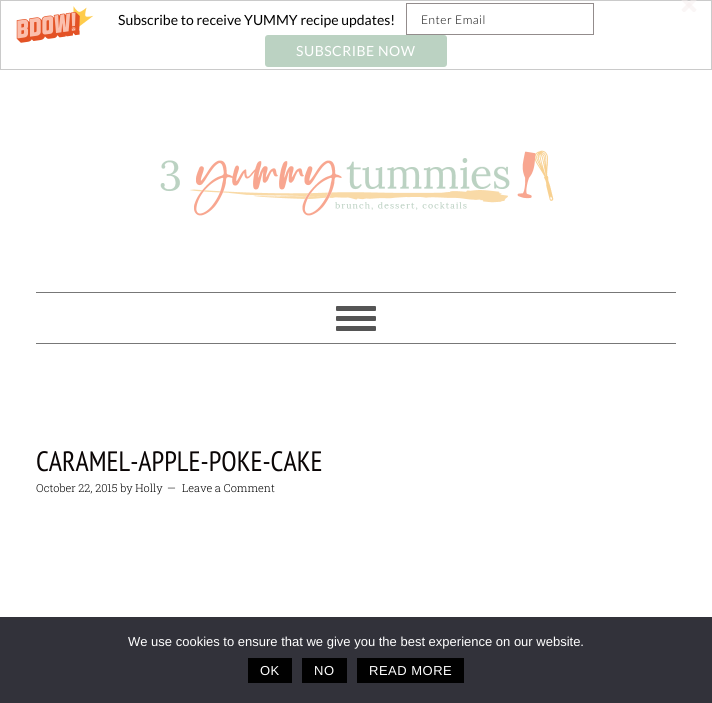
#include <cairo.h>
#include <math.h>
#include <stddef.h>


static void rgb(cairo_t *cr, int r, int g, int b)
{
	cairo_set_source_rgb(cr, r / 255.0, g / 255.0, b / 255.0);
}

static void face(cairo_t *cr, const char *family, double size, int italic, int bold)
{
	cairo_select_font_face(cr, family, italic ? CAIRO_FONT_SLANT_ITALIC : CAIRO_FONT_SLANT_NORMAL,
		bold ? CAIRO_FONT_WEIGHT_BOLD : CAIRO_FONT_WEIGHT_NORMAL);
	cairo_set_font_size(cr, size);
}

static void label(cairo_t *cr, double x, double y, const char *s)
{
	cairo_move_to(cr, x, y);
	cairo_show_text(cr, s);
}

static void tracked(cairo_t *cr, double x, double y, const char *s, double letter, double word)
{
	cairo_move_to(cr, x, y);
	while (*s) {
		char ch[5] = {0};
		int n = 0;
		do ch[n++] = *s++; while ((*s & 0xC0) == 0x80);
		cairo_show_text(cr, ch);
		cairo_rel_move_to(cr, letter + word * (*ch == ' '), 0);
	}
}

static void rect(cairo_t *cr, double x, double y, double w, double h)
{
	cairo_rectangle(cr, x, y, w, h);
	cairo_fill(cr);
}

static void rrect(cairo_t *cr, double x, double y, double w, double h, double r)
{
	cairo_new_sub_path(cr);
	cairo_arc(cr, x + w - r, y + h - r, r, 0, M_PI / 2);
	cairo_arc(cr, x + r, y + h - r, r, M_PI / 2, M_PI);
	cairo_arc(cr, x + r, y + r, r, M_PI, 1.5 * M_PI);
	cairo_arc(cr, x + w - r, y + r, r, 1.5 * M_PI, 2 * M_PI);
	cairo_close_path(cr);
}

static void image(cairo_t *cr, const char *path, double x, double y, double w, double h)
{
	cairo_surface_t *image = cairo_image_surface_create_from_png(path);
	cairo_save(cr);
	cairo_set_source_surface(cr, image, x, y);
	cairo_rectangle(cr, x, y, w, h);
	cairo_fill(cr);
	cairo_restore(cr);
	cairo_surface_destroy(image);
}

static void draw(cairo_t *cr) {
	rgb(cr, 255, 255, 255);
	cairo_paint(cr);
	cairo_rectangle(cr, 0.5, 0.5, 711, 69);
	rgb(cr, 202, 202, 202);
	cairo_set_line_width(cr, 1);
	cairo_stroke(cr);
	image(cr, "image0.png", 16, 6, 78, 37);
	face(cr, "Lato", 14, 0, 0);
	rgb(cr, 0, 0, 0);
	label(cr, 118, 25, "Subscribe to receive YUMMY recipe updates!");
	cairo_rectangle(cr, 406.5, 3.5, 187, 31);
	rgb(cr, 147, 140, 140);
	cairo_stroke(cr);
	face(cr, "Lato Light", 12, 0, 0);
	rgb(cr, 0, 0, 0);
	tracked(cr, 421, 24, "Enter Email", 0.5, 0);
	image(cr, "image1.png", 681, 0, 16, 12);
	rgb(cr, 187, 210, 194);
	rrect(cr, 265, 35, 182, 32, 3);
	cairo_fill(cr);
	face(cr, "Lato", 14, 0, 0);
	rgb(cr, 255, 255, 255);
	tracked(cr, 296, 56, "SUBSCRIBE NOW", 0.5, 0);
	image(cr, "image2.png", 160, 150, 394, 66);
	rgb(cr, 119, 119, 119);
	rect(cr, 36, 292, 640, 1);
	rect(cr, 36, 343, 640, 1);
	rgb(cr, 85, 85, 85);
	rrect(cr, 336, 316, 40, 5, 1);
	cairo_fill(cr);
	rrect(cr, 336, 306, 40, 5, 1);
	cairo_fill(cr);
	rrect(cr, 336, 326, 40, 5, 1);
	cairo_fill(cr);
	face(cr, "PT Sans Narrow", 28, 0, 0);
	rgb(cr, 10, 5, 5);
	label(cr, 36, 471, "CARAMEL-APPLE-POKE-CAKE");
	face(cr, "Roboto Slab Light", 11, 0, 0);
	rgb(cr, 0, 0, 0);
	label(cr, 36, 492, "October 22, 2015 by Holly");
	label(cr, 167, 492, "—");
	label(cr, 182, 492, "Leave a Comment");
	rgb(cr, 50, 50, 58);
	rect(cr, 0, 617, 712, 86);
	face(cr, "Liberation Sans", 13, 0, 0);
	rgb(cr, 255, 255, 255);
	label(cr, 128, 646, "We use cookies to ensure that we give you the best experience on our website.");
	rgb(cr, 1, 1, 1);
	rect(cr, 248, 658, 44, 25);
	rgb(cr, 255, 255, 255);
	tracked(cr, 260, 675, "OK", 0.5, 0);
	rgb(cr, 1, 1, 1);
	rect(cr, 302, 658, 45, 25);
	rgb(cr, 255, 255, 255);
	tracked(cr, 314, 675, "NO", 0.5, 0);
	rgb(cr, 1, 1, 1);
	rect(cr, 357, 658, 107, 25);
	rgb(cr, 255, 255, 255);
	tracked(cr, 369, 675, "READ MORE", 0.5, 0);
}

int main(void) {
	cairo_surface_t *surface = cairo_image_surface_create(CAIRO_FORMAT_RGB24, 712, 703);
	cairo_t *cr = cairo_create(surface);
	cairo_font_options_t *options = cairo_font_options_create();
	cairo_font_options_set_hint_metrics(options, CAIRO_HINT_METRICS_OFF);
	cairo_font_options_set_hint_style(options, CAIRO_HINT_STYLE_NONE);
	cairo_set_font_options(cr, options);
	cairo_set_miter_limit(cr, 4);
	draw(cr);
	cairo_surface_write_to_png(surface, "render.png");
	cairo_font_options_destroy(options);
	cairo_destroy(cr);
	cairo_surface_destroy(surface);
	return 0;
}
